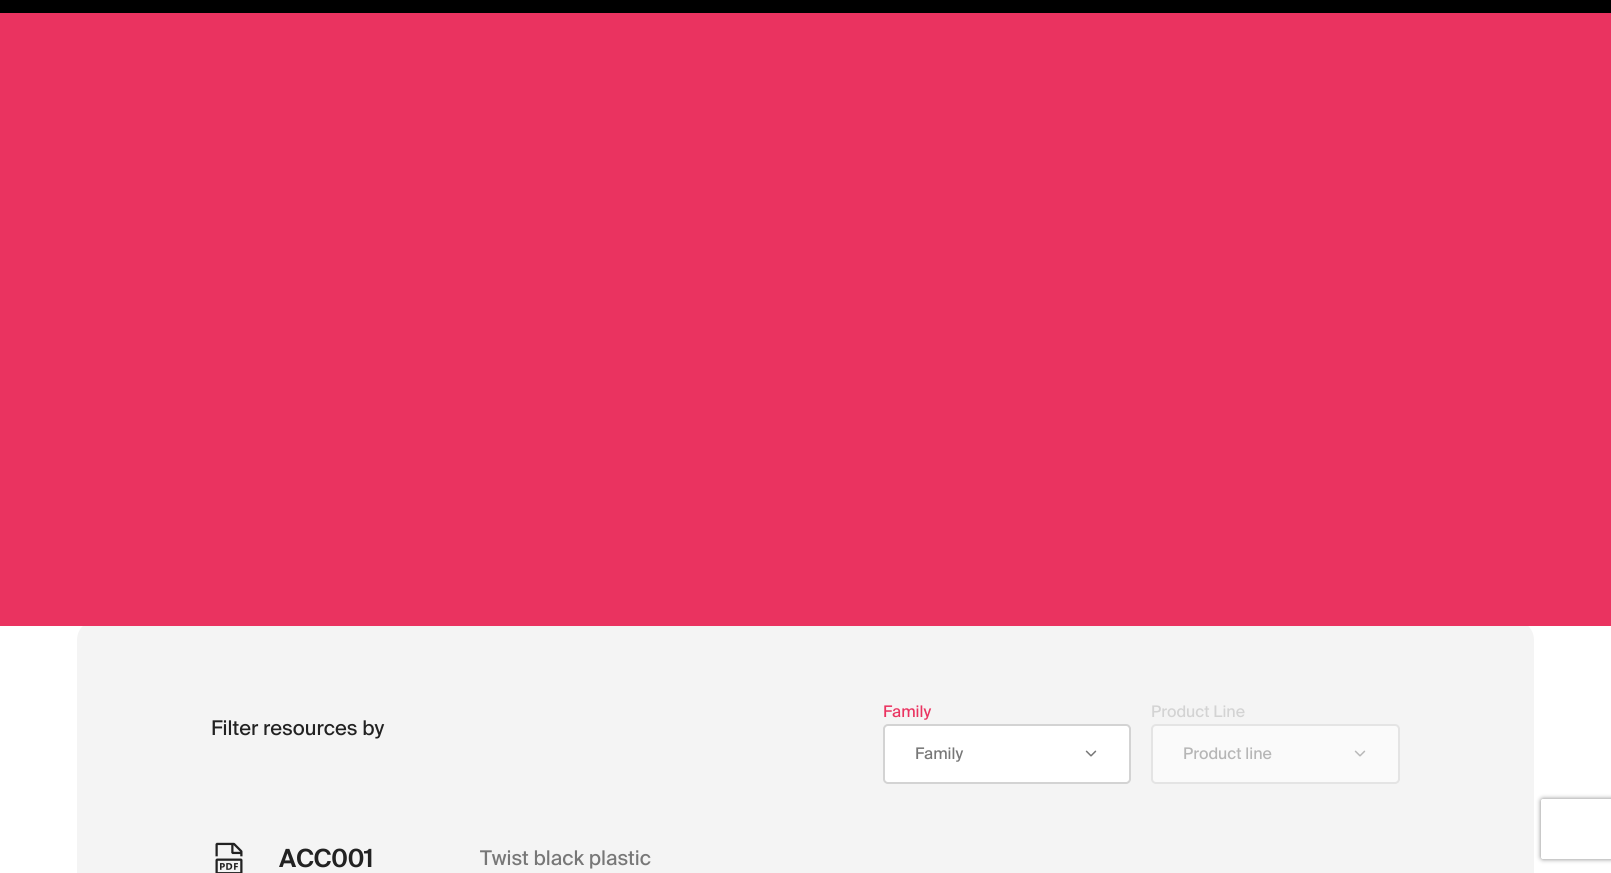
#include <cairo.h>
#include <math.h>
#include <stddef.h>


static void rgb(cairo_t *cr, int r, int g, int b)
{
	cairo_set_source_rgb(cr, r / 255.0, g / 255.0, b / 255.0);
}

static void face(cairo_t *cr, const char *family, double size, int italic, int bold)
{
	cairo_select_font_face(cr, family, italic ? CAIRO_FONT_SLANT_ITALIC : CAIRO_FONT_SLANT_NORMAL,
		bold ? CAIRO_FONT_WEIGHT_BOLD : CAIRO_FONT_WEIGHT_NORMAL);
	cairo_set_font_size(cr, size);
}

static void label(cairo_t *cr, double x, double y, const char *s)
{
	cairo_move_to(cr, x, y);
	cairo_show_text(cr, s);
}

static void tracked(cairo_t *cr, double x, double y, const char *s, double letter, double word)
{
	cairo_move_to(cr, x, y);
	while (*s) {
		char ch[5] = {0};
		int n = 0;
		do ch[n++] = *s++; while ((*s & 0xC0) == 0x80);
		cairo_show_text(cr, ch);
		cairo_rel_move_to(cr, letter + word * (*ch == ' '), 0);
	}
}

static void rect(cairo_t *cr, double x, double y, double w, double h)
{
	cairo_rectangle(cr, x, y, w, h);
	cairo_fill(cr);
}

static void rrect(cairo_t *cr, double x, double y, double w, double h, double r)
{
	cairo_new_sub_path(cr);
	cairo_arc(cr, x + w - r, y + h - r, r, 0, M_PI / 2);
	cairo_arc(cr, x + r, y + h - r, r, M_PI / 2, M_PI);
	cairo_arc(cr, x + r, y + r, r, M_PI, 1.5 * M_PI);
	cairo_arc(cr, x + w - r, y + r, r, 1.5 * M_PI, 2 * M_PI);
	cairo_close_path(cr);
}

static void soft_shadow(cairo_t *cr, double x, double y, double w, double h, double r, double blur, double alpha)
{
	cairo_push_group_with_content(cr, CAIRO_CONTENT_ALPHA);
	cairo_set_operator(cr, CAIRO_OPERATOR_SOURCE);
	for (int i = 15; i >= -15 && fmin(w, h) + blur * i / 3 > 0; i -= 2) {
		double e = blur * i / 6;
		cairo_set_source_rgba(cr, 0, 0, 0, alpha * erfc((i - 1) / 8.5) / 2);
		rrect(cr, x - e, y - e, w + 2 * e, h + 2 * e, fmax(0, fmin(r + e + blur * .6, fmin(w, h) / 2 + e)));
		cairo_fill(cr);
	}
	cairo_pattern_t *soft = cairo_pop_group(cr);
	cairo_mask(cr, soft);
	cairo_pattern_destroy(soft);
}

static void image(cairo_t *cr, const char *path, double x, double y, double w, double h)
{
	cairo_surface_t *image = cairo_image_surface_create_from_png(path);
	cairo_save(cr);
	cairo_set_source_surface(cr, image, x, y);
	cairo_rectangle(cr, x, y, w, h);
	cairo_fill(cr);
	cairo_restore(cr);
	cairo_surface_destroy(image);
}

static void draw(cairo_t *cr) {
	rgb(cr, 255, 255, 255);
	cairo_paint(cr);
	rgb(cr, 0, 0, 0);
	rect(cr, 0, 0, 1611, 13);
	rgb(cr, 244, 244, 244);
	cairo_new_path(cr);
	cairo_move_to(cr, 97, 620);
	cairo_line_to(cr, 1514, 620);
	cairo_curve_to(cr, 1525, 620, 1534, 629, 1534, 640);
	cairo_line_to(cr, 1534, 873);
	cairo_line_to(cr, 77, 873);
	cairo_line_to(cr, 77, 640);
	cairo_curve_to(cr, 77, 629, 86, 620, 97, 620);
	cairo_close_path(cr);
	cairo_fill(cr);
	rgb(cr, 234, 51, 96);
	rect(cr, 0, 13, 1611, 613);
	face(cr, "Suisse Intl", 20.25, 0, 0);
	rgb(cr, 34, 34, 34);
	label(cr, 211, 735, "Filter resources by");
	face(cr, "Suisse Intl", 16, 0, 0);
	rgb(cr, 234, 51, 96);
	label(cr, 883, 717, "Family");
	rgb(cr, 255, 255, 255);
	rrect(cr, 884, 725, 246, 58, 4);
	cairo_fill_preserve(cr);
	rgb(cr, 211, 211, 211);
	cairo_stroke(cr);
	rgb(cr, 119, 119, 119);
	label(cr, 915, 759, "Family");
	image(cr, "image0.png", 1085, 750, 12, 7);
	rgb(cr, 211, 211, 211);
	label(cr, 1151, 717, "Product Line");
	rgb(cr, 250, 250, 250);
	rrect(cr, 1152, 725, 247, 58, 4);
	cairo_fill_preserve(cr);
	rgb(cr, 228, 228, 228);
	cairo_stroke(cr);
	rgb(cr, 182, 182, 182);
	label(cr, 1183, 759, "Product line");
	image(cr, "image1.png", 1354, 750, 12, 7);
	image(cr, "image2.png", 215, 842, 28, 31);
	face(cr, "Suisse Intl SemiBold", 25, 0, 0);
	rgb(cr, 34, 34, 34);
	tracked(cr, 279, 867, "ACC001", -0.25, 0);
	face(cr, "Suisse Intl", 20.25, 0, 0);
	rgb(cr, 119, 119, 119);
	label(cr, 480, 865, "Twist black plastic");
	cairo_save(cr);
	cairo_set_fill_rule(cr, CAIRO_FILL_RULE_EVEN_ODD);
	cairo_new_path(cr);
	cairo_move_to(cr, 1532, 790);
	cairo_line_to(cr, 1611, 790);
	cairo_line_to(cr, 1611, 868);
	cairo_line_to(cr, 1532, 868);
	cairo_close_path(cr);
	cairo_move_to(cr, 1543, 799);
	cairo_line_to(cr, 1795, 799);
	cairo_curve_to(cr, 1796, 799, 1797, 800, 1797, 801);
	cairo_line_to(cr, 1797, 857);
	cairo_curve_to(cr, 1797, 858, 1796, 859, 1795, 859);
	cairo_line_to(cr, 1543, 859);
	cairo_curve_to(cr, 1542, 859, 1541, 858, 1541, 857);
	cairo_line_to(cr, 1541, 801);
	cairo_curve_to(cr, 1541, 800, 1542, 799, 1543, 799);
	cairo_close_path(cr);
	cairo_clip(cr);
	rgb(cr, 128, 128, 128);
	soft_shadow(cr, 1541, 799, 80, 60, 2, 2.5, 1);
	cairo_restore(cr);
}

int main(void) {
	cairo_surface_t *surface = cairo_image_surface_create(CAIRO_FORMAT_RGB24, 1611, 873);
	cairo_t *cr = cairo_create(surface);
	cairo_font_options_t *options = cairo_font_options_create();
	cairo_font_options_set_hint_metrics(options, CAIRO_HINT_METRICS_OFF);
	cairo_font_options_set_hint_style(options, CAIRO_HINT_STYLE_NONE);
	cairo_set_font_options(cr, options);
	cairo_set_miter_limit(cr, 4);
	draw(cr);
	cairo_surface_write_to_png(surface, "render.png");
	cairo_font_options_destroy(options);
	cairo_destroy(cr);
	cairo_surface_destroy(surface);
	return 0;
}
